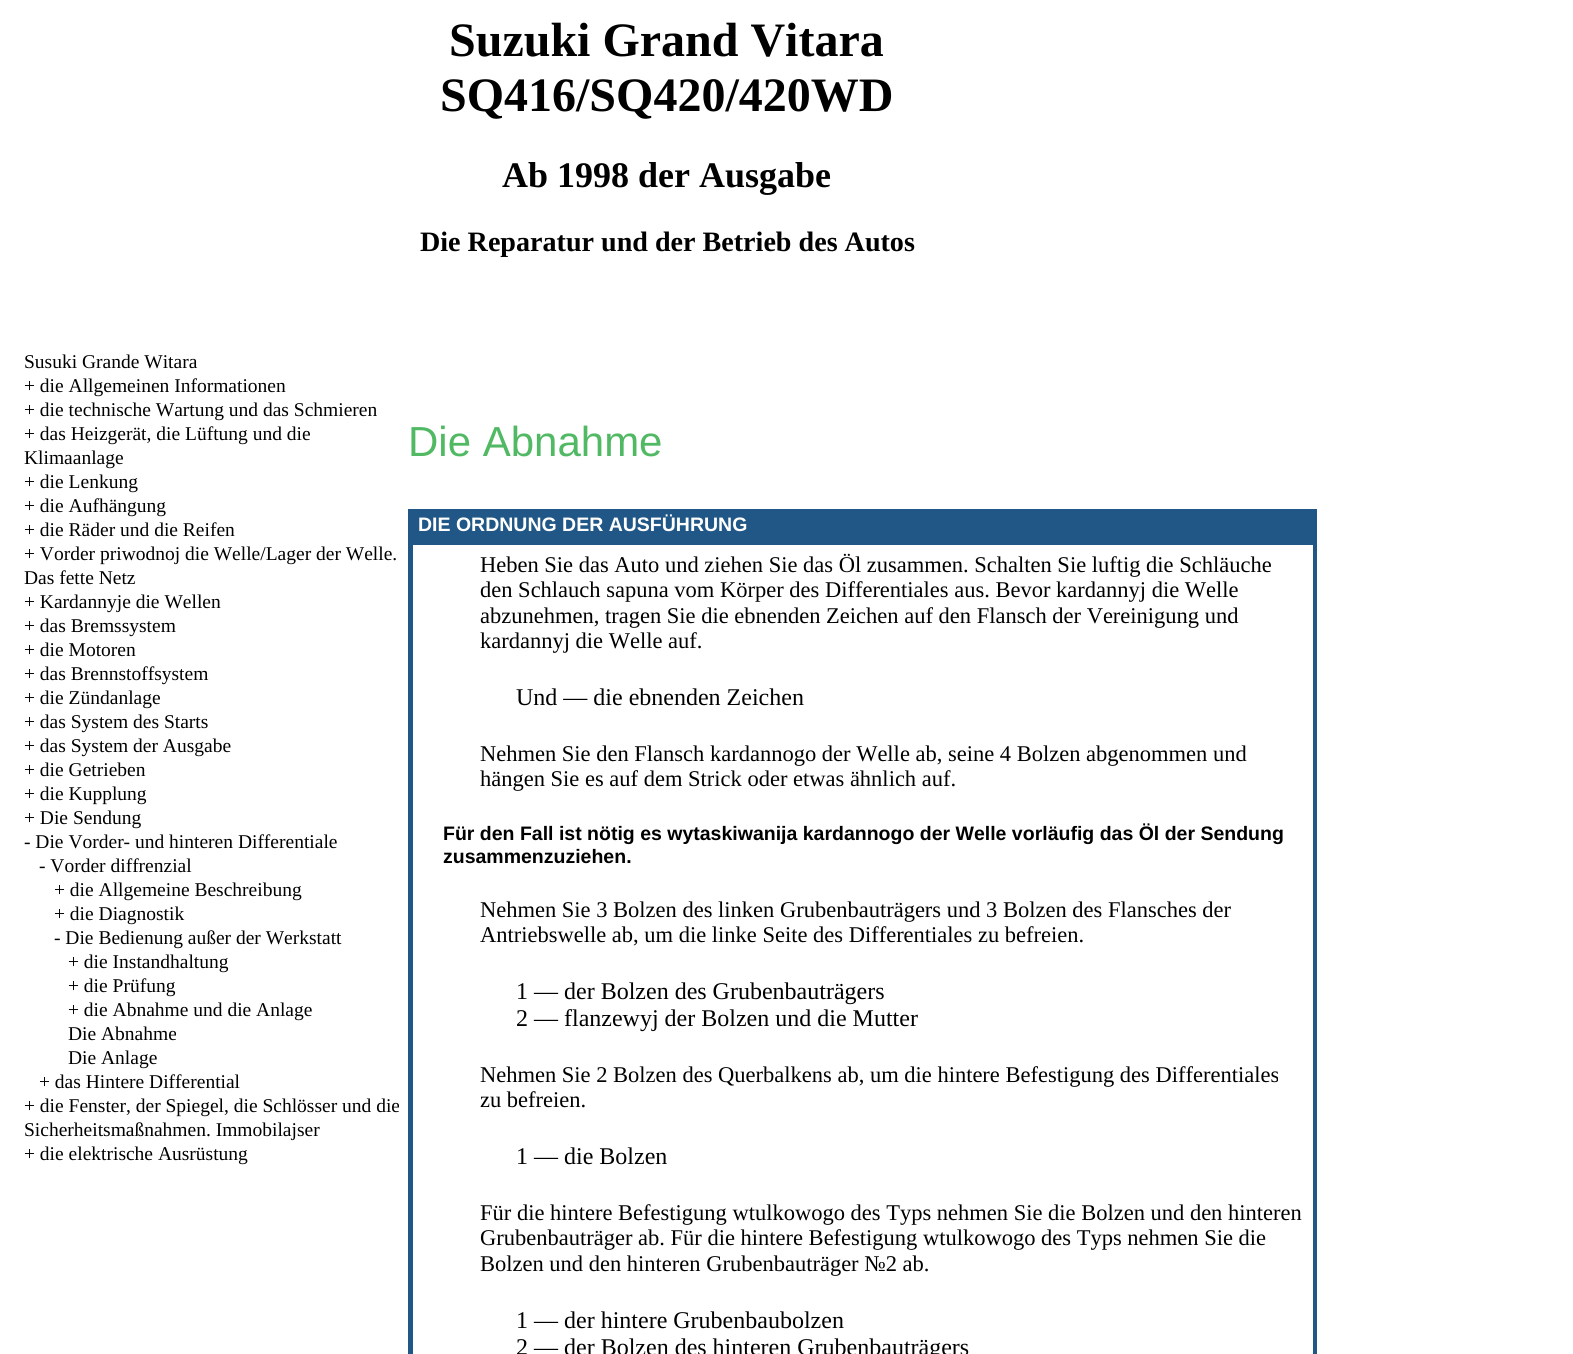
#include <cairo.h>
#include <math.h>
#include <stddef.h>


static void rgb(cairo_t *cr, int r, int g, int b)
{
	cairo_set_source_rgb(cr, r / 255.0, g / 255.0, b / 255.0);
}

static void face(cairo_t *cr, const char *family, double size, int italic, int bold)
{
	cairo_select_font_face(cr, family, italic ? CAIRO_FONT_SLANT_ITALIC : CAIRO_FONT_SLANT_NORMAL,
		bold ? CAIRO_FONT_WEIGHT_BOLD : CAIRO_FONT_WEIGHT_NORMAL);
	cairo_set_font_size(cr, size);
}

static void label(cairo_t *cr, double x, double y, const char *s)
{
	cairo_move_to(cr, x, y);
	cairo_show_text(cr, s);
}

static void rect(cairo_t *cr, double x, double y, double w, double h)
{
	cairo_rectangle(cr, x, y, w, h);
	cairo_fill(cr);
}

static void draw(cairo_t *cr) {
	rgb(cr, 255, 255, 255);
	cairo_paint(cr);
	face(cr, "Liberation Serif", 48, 0, 1);
	rgb(cr, 0, 0, 0);
	label(cr, 449, 56, "Suzuki Grand Vitara");
	label(cr, 440, 111, "SQ416/SQ420/420WD");
	face(cr, "Liberation Serif", 36, 0, 1);
	label(cr, 502, 187, "Ab 1998 der Ausgabe");
	face(cr, "Liberation Serif", 28.1, 0, 1);
	label(cr, 420, 251, "Die Reparatur und der Betrieb des Autos");
	face(cr, "Liberation Serif", 19.5, 0, 0);
	label(cr, 24, 368, "Susuki Grande Witara");
	label(cr, 24, 392, "+ die Allgemeinen Informationen");
	label(cr, 24, 416, "+ die technische Wartung und das Schmieren");
	label(cr, 24, 440, "+ das Heizgerät, die Lüftung und die");
	label(cr, 24, 464, "Klimaanlage");
	label(cr, 24, 488, "+ die Lenkung");
	label(cr, 24, 512, "+ die Aufhängung");
	label(cr, 24, 536, "+ die Räder und die Reifen");
	label(cr, 24, 560, "+ Vorder priwodnoj die Welle/Lager der Welle.");
	label(cr, 24, 584, "Das fette Netz");
	label(cr, 24, 608, "+ Kardannyje die Wellen");
	label(cr, 24, 632, "+ das Bremssystem");
	label(cr, 24, 656, "+ die Motoren");
	label(cr, 24, 680, "+ das Brennstoffsystem");
	label(cr, 24, 704, "+ die Zündanlage");
	label(cr, 24, 728, "+ das System des Starts");
	label(cr, 24, 752, "+ das System der Ausgabe");
	label(cr, 24, 776, "+ die Getrieben");
	label(cr, 24, 800, "+ die Kupplung");
	label(cr, 24, 824, "+ Die Sendung");
	label(cr, 24, 848, "- Die Vorder- und hinteren Differentiale");
	label(cr, 39, 872, "- Vorder diffrenzial");
	label(cr, 54, 896, "+ die Allgemeine Beschreibung");
	label(cr, 54, 920, "+ die Diagnostik");
	label(cr, 54, 944, "- Die Bedienung außer der Werkstatt");
	label(cr, 68, 968, "+ die Instandhaltung");
	label(cr, 68, 992, "+ die Prüfung");
	label(cr, 68, 1016, "+ die Abnahme und die Anlage");
	label(cr, 68, 1040, "Die Abnahme");
	label(cr, 68, 1064, "Die Anlage");
	label(cr, 39, 1088, "+ das Hintere Differential");
	label(cr, 24, 1112, "+ die Fenster, der Spiegel, die Schlösser und die");
	label(cr, 24, 1136, "Sicherheitsmaßnahmen. Immobilajser");
	label(cr, 24, 1160, "+ die elektrische Ausrüstung");
	face(cr, "Liberation Sans", 42, 0, 0);
	rgb(cr, 81, 185, 99);
	label(cr, 408, 456, "Die Abnahme");
	rgb(cr, 33, 87, 134);
	rect(cr, 408, 509, 909, 845);
	face(cr, "Liberation Sans", 19.5, 0, 1);
	rgb(cr, 255, 255, 255);
	label(cr, 418, 531, "DIE ORDNUNG DER AUSFÜHRUNG");
	rect(cr, 413, 545, 900, 809);
	face(cr, "Liberation Serif", 22.5, 0, 0);
	rgb(cr, 0, 0, 0);
	label(cr, 480, 572, "Heben Sie das Auto und ziehen Sie das Öl zusammen. Schalten Sie luftig die Schläuche");
	label(cr, 480, 597, "den Schlauch sapuna vom Körper des Differentiales aus. Bevor kardannyj die Welle");
	label(cr, 480, 623, "abzunehmen, tragen Sie die ebnenden Zeichen auf den Flansch der Vereinigung und");
	label(cr, 480, 648, "kardannyj die Welle auf.");
	face(cr, "Liberation Serif", 24, 0, 0);
	label(cr, 516, 705, "Und — die ebnenden Zeichen");
	face(cr, "Liberation Serif", 22.5, 0, 0);
	label(cr, 480, 761, "Nehmen Sie den Flansch kardannogo der Welle ab, seine 4 Bolzen abgenommen und");
	label(cr, 480, 786, "hängen Sie es auf dem Strick oder etwas ähnlich auf.");
	face(cr, "Liberation Sans", 19.5, 0, 1);
	label(cr, 443, 840, "Für den Fall ist nötig es wytaskiwanija kardannogo der Welle vorläufig das Öl der Sendung");
	label(cr, 443, 863, "zusammenzuziehen.");
	face(cr, "Liberation Serif", 22.5, 0, 0);
	label(cr, 480, 917, "Nehmen Sie 3 Bolzen des linken Grubenbauträgers und 3 Bolzen des Flansches der");
	label(cr, 480, 942, "Antriebswelle ab, um die linke Seite des Differentiales zu befreien.");
	face(cr, "Liberation Serif", 24, 0, 0);
	label(cr, 516, 999, "1 — der Bolzen des Grubenbauträgers");
	label(cr, 516, 1026, "2 — flanzewyj der Bolzen und die Mutter");
	face(cr, "Liberation Serif", 22.5, 0, 0);
	label(cr, 480, 1082, "Nehmen Sie 2 Bolzen des Querbalkens ab, um die hintere Befestigung des Differentiales");
	label(cr, 480, 1107, "zu befreien.");
	face(cr, "Liberation Serif", 24, 0, 0);
	label(cr, 516, 1164, "1 — die Bolzen");
	face(cr, "Liberation Serif", 22.5, 0, 0);
	label(cr, 480, 1220, "Für die hintere Befestigung wtulkowogo des Typs nehmen Sie die Bolzen und den hinteren");
	label(cr, 480, 1245, "Grubenbauträger ab. Für die hintere Befestigung wtulkowogo des Typs nehmen Sie die");
	label(cr, 480, 1271, "Bolzen und den hinteren Grubenbauträger №2 ab.");
	face(cr, "Liberation Serif", 24, 0, 0);
	label(cr, 516, 1328, "1 — der hintere Grubenbaubolzen");
	label(cr, 516, 1355, "2 — der Bolzen des hinteren Grubenbauträgers");
}

int main(void) {
	cairo_surface_t *surface = cairo_image_surface_create(CAIRO_FORMAT_RGB24, 1573, 1354);
	cairo_t *cr = cairo_create(surface);
	cairo_font_options_t *options = cairo_font_options_create();
	cairo_font_options_set_hint_metrics(options, CAIRO_HINT_METRICS_OFF);
	cairo_font_options_set_hint_style(options, CAIRO_HINT_STYLE_NONE);
	cairo_set_font_options(cr, options);
	cairo_set_miter_limit(cr, 4);
	draw(cr);
	cairo_surface_write_to_png(surface, "render.png");
	cairo_font_options_destroy(options);
	cairo_destroy(cr);
	cairo_surface_destroy(surface);
	return 0;
}
